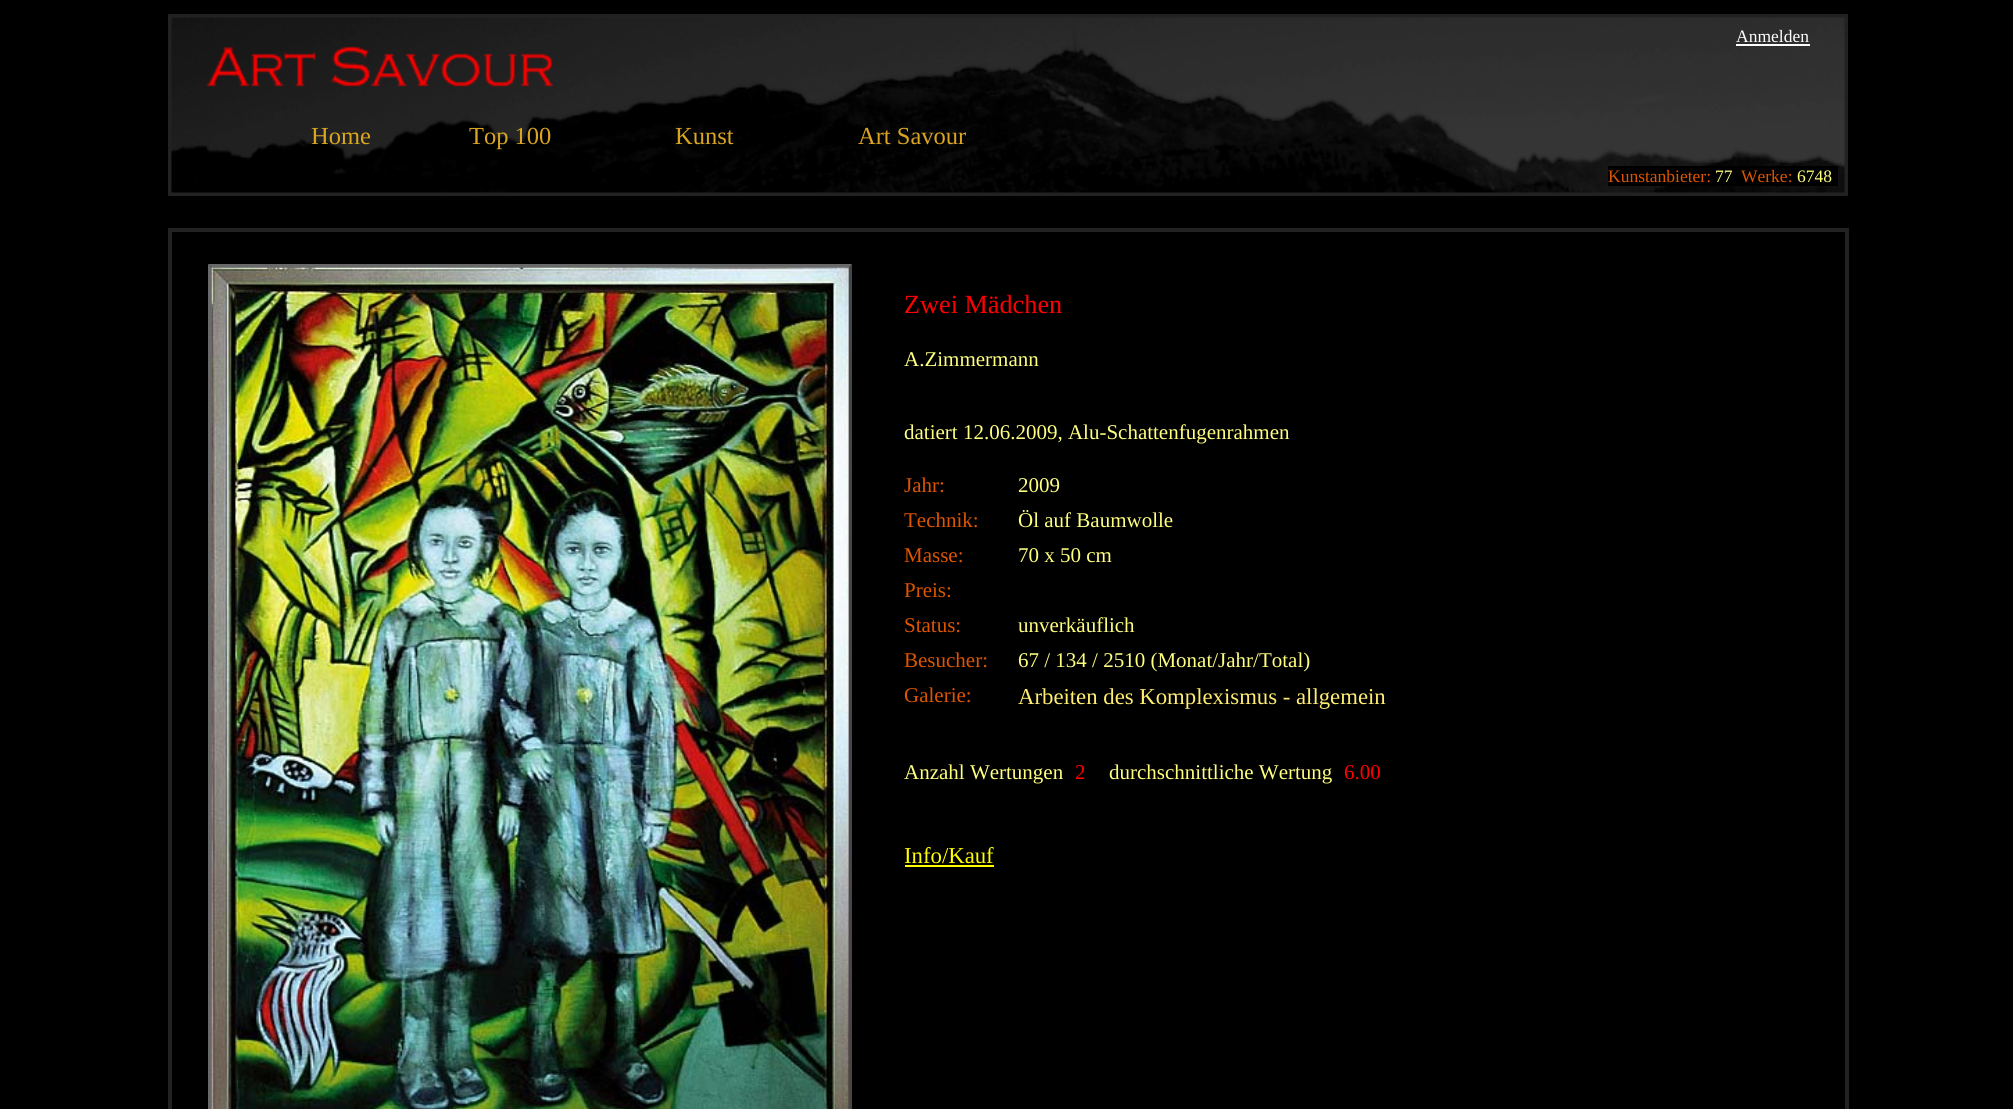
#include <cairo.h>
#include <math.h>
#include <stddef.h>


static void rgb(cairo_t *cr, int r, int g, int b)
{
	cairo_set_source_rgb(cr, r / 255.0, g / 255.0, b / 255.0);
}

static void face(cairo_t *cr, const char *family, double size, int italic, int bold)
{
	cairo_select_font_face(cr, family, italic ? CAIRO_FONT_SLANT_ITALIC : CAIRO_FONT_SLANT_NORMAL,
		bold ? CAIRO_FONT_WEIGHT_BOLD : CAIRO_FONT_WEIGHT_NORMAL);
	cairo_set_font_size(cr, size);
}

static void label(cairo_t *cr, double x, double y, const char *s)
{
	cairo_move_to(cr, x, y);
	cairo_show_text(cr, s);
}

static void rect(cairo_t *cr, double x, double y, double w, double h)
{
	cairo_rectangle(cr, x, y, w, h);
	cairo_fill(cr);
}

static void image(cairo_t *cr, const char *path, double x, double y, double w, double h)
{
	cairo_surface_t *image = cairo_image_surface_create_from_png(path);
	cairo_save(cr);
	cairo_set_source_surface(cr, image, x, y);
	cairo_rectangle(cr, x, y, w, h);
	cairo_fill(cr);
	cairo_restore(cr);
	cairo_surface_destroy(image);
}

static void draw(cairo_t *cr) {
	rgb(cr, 0, 0, 0);
	cairo_paint(cr);
	cairo_rectangle(cr, 170, 16, 1676, 178);
	rgb(cr, 34, 34, 34);
	cairo_set_line_width(cr, 4);
	cairo_stroke(cr);
	image(cr, "image0.png", 171, 17, 1674, 176);
	face(cr, "Liberation Serif", 24.5, 0, 0);
	rgb(cr, 218, 165, 32);
	label(cr, 311, 144, "Home");
	label(cr, 469, 144, "Top 100");
	label(cr, 675, 144, "Kunst");
	label(cr, 858, 144, "Art Savour");
	image(cr, "image1.png", 978, 139, 3, 2);
	face(cr, "Liberation Serif", 17.5, 0, 0);
	rgb(cr, 255, 255, 255);
	label(cr, 1736, 42, "Anmelden");
	rect(cr, 1736, 44, 74, 2);
	rgb(cr, 0, 0, 0);
	rect(cr, 1608, 166, 230, 20);
	rgb(cr, 221, 85, 0);
	label(cr, 1608, 182, "Kunstanbieter:");
	rgb(cr, 255, 255, 128);
	label(cr, 1715, 182, "77");
	rgb(cr, 221, 85, 0);
	label(cr, 1741, 182, "Werke:");
	rgb(cr, 255, 255, 128);
	label(cr, 1797, 182, "6748");
	rgb(cr, 34, 34, 34);
	rect(cr, 168, 228, 1680, 4);
	rect(cr, 1845, 228, 4, 881);
	rect(cr, 168, 228, 4, 881);
	rgb(cr, 105, 105, 105);
	cairo_new_path(cr);
	cairo_move_to(cr, 208, 264);
	cairo_line_to(cr, 852, 264);
	cairo_line_to(cr, 849, 268);
	cairo_line_to(cr, 212, 268);
	cairo_close_path(cr);
	cairo_fill(cr);
	cairo_new_path(cr);
	cairo_move_to(cr, 208, 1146);
	cairo_line_to(cr, 208, 264);
	cairo_line_to(cr, 212, 268);
	cairo_line_to(cr, 212, 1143);
	cairo_close_path(cr);
	cairo_fill(cr);
	image(cr, "image2.png", 211, 267, 638, 842);
	rgb(cr, 70, 70, 70);
	cairo_new_path(cr);
	cairo_move_to(cr, 852, 264);
	cairo_line_to(cr, 852, 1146);
	cairo_line_to(cr, 849, 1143);
	cairo_line_to(cr, 849, 268);
	cairo_close_path(cr);
	cairo_fill(cr);
	face(cr, "Liberation Serif", 26.25, 0, 0);
	rgb(cr, 255, 0, 0);
	label(cr, 904, 313, "Zwei Mädchen");
	face(cr, "Liberation Serif", 21, 0, 0);
	rgb(cr, 255, 255, 128);
	label(cr, 904, 366, "A.Zimmermann");
	label(cr, 904, 439, "datiert 12.06.2009, Alu-Schattenfugenrahmen");
	rgb(cr, 221, 85, 0);
	label(cr, 904, 492, "Jahr:");
	rgb(cr, 255, 255, 128);
	label(cr, 1018, 492, "2009");
	rgb(cr, 221, 85, 0);
	label(cr, 904, 527, "Technik:");
	rgb(cr, 255, 255, 128);
	label(cr, 1018, 527, "Öl auf Baumwolle");
	rgb(cr, 221, 85, 0);
	label(cr, 904, 562, "Masse:");
	rgb(cr, 255, 255, 128);
	label(cr, 1018, 562, "70 x 50 cm");
	rgb(cr, 221, 85, 0);
	label(cr, 904, 597, "Preis:");
	label(cr, 904, 632, "Status:");
	rgb(cr, 255, 255, 128);
	label(cr, 1018, 632, "unverkäuflich");
	rgb(cr, 221, 85, 0);
	label(cr, 904, 667, "Besucher:");
	rgb(cr, 255, 255, 128);
	label(cr, 1018, 667, "67 / 134 / 2510 (Monat/Jahr/Total)");
	rgb(cr, 221, 85, 0);
	label(cr, 904, 702, "Galerie:");
	face(cr, "Liberation Serif", 22.75, 0, 0);
	rgb(cr, 255, 238, 112);
	label(cr, 1018, 704, "Arbeiten des Komplexismus - allgemein");
	face(cr, "Liberation Serif", 21, 0, 0);
	rgb(cr, 255, 255, 128);
	label(cr, 904, 779, "Anzahl Wertungen");
	rgb(cr, 255, 0, 0);
	label(cr, 1075, 779, "2");
	rgb(cr, 255, 255, 128);
	label(cr, 1109, 779, "durchschnittliche Wertung");
	rgb(cr, 255, 0, 0);
	label(cr, 1344, 779, "6.00");
	face(cr, "Liberation Serif", 22.75, 0, 0);
	rgb(cr, 255, 255, 0);
	label(cr, 904, 863, "Info/Kauf");
	rect(cr, 905, 865, 89, 2);
}

int main(void) {
	cairo_surface_t *surface = cairo_image_surface_create(CAIRO_FORMAT_RGB24, 2013, 1109);
	cairo_t *cr = cairo_create(surface);
	cairo_font_options_t *options = cairo_font_options_create();
	cairo_font_options_set_hint_metrics(options, CAIRO_HINT_METRICS_OFF);
	cairo_font_options_set_hint_style(options, CAIRO_HINT_STYLE_NONE);
	cairo_set_font_options(cr, options);
	cairo_set_miter_limit(cr, 4);
	draw(cr);
	cairo_surface_write_to_png(surface, "render.png");
	cairo_font_options_destroy(options);
	cairo_destroy(cr);
	cairo_surface_destroy(surface);
	return 0;
}
